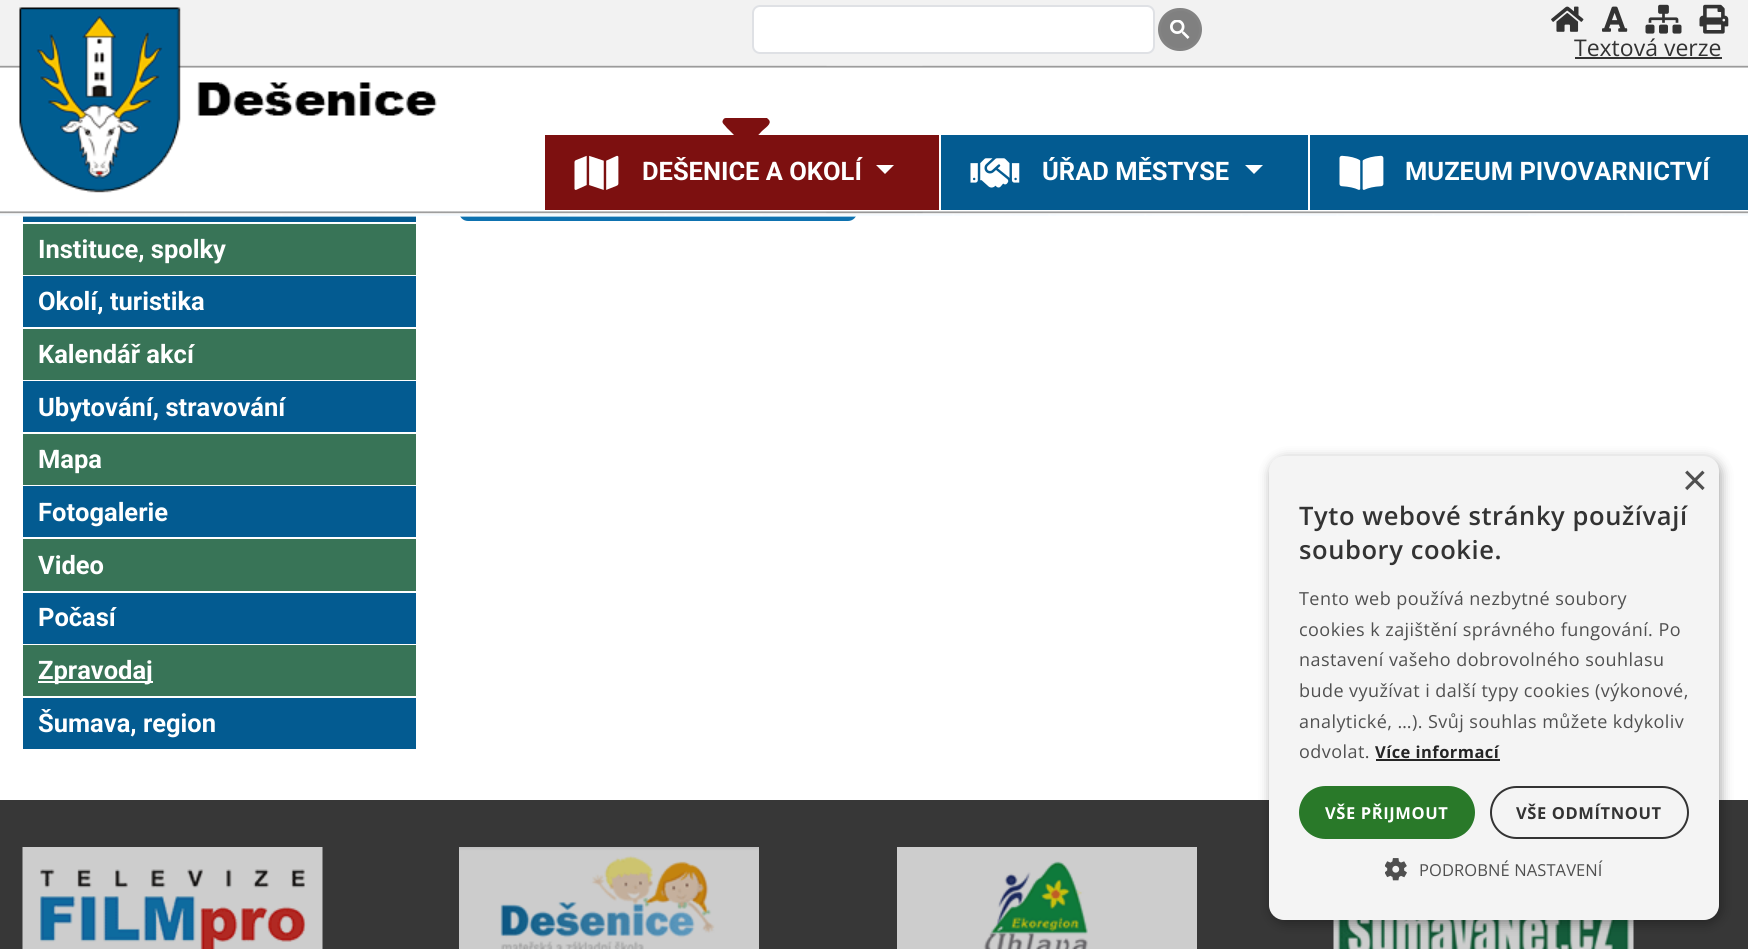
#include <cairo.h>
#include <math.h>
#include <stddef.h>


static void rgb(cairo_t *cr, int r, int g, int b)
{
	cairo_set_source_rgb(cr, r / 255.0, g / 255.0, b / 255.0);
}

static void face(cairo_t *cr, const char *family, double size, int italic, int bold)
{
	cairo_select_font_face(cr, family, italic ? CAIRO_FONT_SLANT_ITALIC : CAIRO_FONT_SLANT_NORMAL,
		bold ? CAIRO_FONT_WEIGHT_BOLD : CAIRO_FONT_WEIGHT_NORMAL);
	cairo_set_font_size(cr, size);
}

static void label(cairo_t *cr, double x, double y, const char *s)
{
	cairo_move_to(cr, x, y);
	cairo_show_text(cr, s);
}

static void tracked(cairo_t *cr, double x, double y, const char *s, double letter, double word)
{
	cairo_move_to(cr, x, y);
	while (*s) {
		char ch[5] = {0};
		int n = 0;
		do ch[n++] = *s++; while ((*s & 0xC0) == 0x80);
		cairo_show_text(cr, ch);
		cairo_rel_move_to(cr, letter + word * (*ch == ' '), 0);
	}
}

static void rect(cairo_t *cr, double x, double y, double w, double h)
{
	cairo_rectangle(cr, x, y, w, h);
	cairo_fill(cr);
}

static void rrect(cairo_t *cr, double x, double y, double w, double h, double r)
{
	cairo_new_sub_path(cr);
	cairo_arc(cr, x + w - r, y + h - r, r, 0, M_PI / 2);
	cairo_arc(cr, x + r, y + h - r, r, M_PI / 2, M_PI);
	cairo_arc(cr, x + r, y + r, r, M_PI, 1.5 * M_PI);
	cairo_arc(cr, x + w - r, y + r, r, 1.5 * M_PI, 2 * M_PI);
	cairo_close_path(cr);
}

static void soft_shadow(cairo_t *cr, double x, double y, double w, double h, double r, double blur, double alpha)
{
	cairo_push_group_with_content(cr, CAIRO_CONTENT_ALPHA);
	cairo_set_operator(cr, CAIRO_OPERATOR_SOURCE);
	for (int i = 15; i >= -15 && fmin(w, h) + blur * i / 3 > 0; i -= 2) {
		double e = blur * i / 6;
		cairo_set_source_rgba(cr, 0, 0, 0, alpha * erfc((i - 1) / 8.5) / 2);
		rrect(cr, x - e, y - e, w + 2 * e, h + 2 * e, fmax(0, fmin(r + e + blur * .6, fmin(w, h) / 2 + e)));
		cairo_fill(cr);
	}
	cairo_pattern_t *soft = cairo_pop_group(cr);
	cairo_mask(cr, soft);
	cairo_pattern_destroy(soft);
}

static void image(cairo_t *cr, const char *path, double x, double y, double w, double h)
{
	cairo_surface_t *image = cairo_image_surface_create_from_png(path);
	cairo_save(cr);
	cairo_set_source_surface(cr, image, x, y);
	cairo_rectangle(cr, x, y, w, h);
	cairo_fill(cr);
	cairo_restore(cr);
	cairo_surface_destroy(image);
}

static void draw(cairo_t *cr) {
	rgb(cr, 255, 255, 255);
	cairo_paint(cr);
	rgb(cr, 14, 114, 176);
	rrect(cr, 459, 158, 398, 63, 9);
	cairo_fill(cr);
	image(cr, "image0.png", 0, 0, 1748, 216);
	rgb(cr, 3, 91, 145);
	rect(cr, 23, 216, 393, 6);
	cairo_set_source_rgba(cr, 1, 1, 1, 0.61);
	rect(cr, 0, 215, 1748, 2);
	image(cr, "image1.png", 19, 7, 162, 186);
	rgb(cr, 255, 255, 255);
	rrect(cr, 753, 6, 401, 47, 7);
	cairo_fill_preserve(cr);
	rgb(cr, 223, 225, 229);
	cairo_stroke(cr);
	rgb(cr, 128, 128, 128);
	rrect(cr, 1159.5, 9.5, 41, 40, 20);
	cairo_fill_preserve(cr);
	rgb(cr, 131, 131, 131);
	cairo_set_line_width(cr, 3);
	cairo_stroke(cr);
	image(cr, "image2.png", 1170, 20, 20, 19);
	image(cr, "image3.png", 1551, 6, 33, 26);
	image(cr, "image4.png", 1602, 6, 26, 26);
	image(cr, "image5.png", 1645, 4, 37, 30);
	image(cr, "image6.png", 1699, 4, 30, 30);
	face(cr, "Open Sans", 23, 0, 0);
	rgb(cr, 51, 51, 51);
	label(cr, 1574, 56, "Textová verze");
	rect(cr, 1575, 57, 147, 2);
	image(cr, "image7.png", 197, 82, 240, 34);
	rgb(cr, 125, 16, 16);
	rect(cr, 545, 135, 394, 75);
	image(cr, "image8.png", 574, 155, 45, 35);
	cairo_new_path(cr);
	cairo_move_to(cr, 727, 118);
	cairo_line_to(cr, 767, 118);
	cairo_line_to(cr, 769, 120);
	cairo_curve_to(cr, 772, 124, 765, 128, 762, 131);
	cairo_curve_to(cr, 759, 134, 750, 145, 746, 145);
	cairo_curve_to(cr, 744, 145, 742, 142, 740, 141);
	cairo_line_to(cr, 727, 128);
	cairo_curve_to(cr, 725, 125, 721, 123, 723, 120);
	cairo_curve_to(cr, 724, 118, 725, 118, 727, 118);
	cairo_close_path(cr);
	cairo_fill(cr);
	face(cr, "Roboto", 25.5, 0, 1);
	rgb(cr, 255, 255, 255);
	label(cr, 642, 180, "DEŠENICE A OKOLÍ");
	cairo_new_path(cr);
	cairo_move_to(cr, 876, 165);
	cairo_line_to(cr, 894, 165);
	cairo_line_to(cr, 885, 174);
	cairo_close_path(cr);
	cairo_fill(cr);
	rgb(cr, 3, 91, 145);
	rect(cr, 941, 135, 367, 75);
	image(cr, "image9.png", 970, 158, 50, 30);
	rgb(cr, 255, 255, 255);
	label(cr, 1042, 180, "ÚŘAD MĚSTYSE");
	cairo_new_path(cr);
	cairo_move_to(cr, 1245, 165);
	cairo_line_to(cr, 1263, 165);
	cairo_line_to(cr, 1254, 174);
	cairo_close_path(cr);
	cairo_fill(cr);
	rgb(cr, 3, 91, 145);
	rect(cr, 1310, 135, 438, 75);
	image(cr, "image10.png", 1339, 155, 45, 35);
	rgb(cr, 255, 255, 255);
	label(cr, 1405, 180, "MUZEUM PIVOVARNICTVÍ");
	rgb(cr, 56, 116, 87);
	rect(cr, 23, 224, 393, 51);
	rgb(cr, 255, 255, 255);
	label(cr, 38, 258, "Instituce, spolky");
	rgb(cr, 3, 91, 145);
	rect(cr, 23, 276, 393, 51);
	rgb(cr, 255, 255, 255);
	label(cr, 38, 310, "Okolí, turistika");
	rgb(cr, 56, 116, 87);
	rect(cr, 23, 329, 393, 51);
	rgb(cr, 255, 255, 255);
	label(cr, 38, 363, "Kalendář akcí");
	rgb(cr, 3, 91, 145);
	rect(cr, 23, 381, 393, 51);
	rgb(cr, 255, 255, 255);
	label(cr, 38, 416, "Ubytování, stravování");
	rgb(cr, 56, 116, 87);
	rect(cr, 23, 434, 393, 51);
	rgb(cr, 255, 255, 255);
	label(cr, 38, 468, "Mapa");
	rgb(cr, 3, 91, 145);
	rect(cr, 23, 486, 393, 51);
	rgb(cr, 255, 255, 255);
	label(cr, 38, 521, "Fotogalerie");
	rgb(cr, 56, 116, 87);
	rect(cr, 23, 539, 393, 52);
	rgb(cr, 255, 255, 255);
	label(cr, 38, 574, "Video");
	rgb(cr, 3, 91, 145);
	rect(cr, 23, 593, 393, 51);
	rgb(cr, 255, 255, 255);
	label(cr, 38, 626, "Počasí");
	rgb(cr, 56, 116, 87);
	rect(cr, 23, 645, 393, 51);
	rgb(cr, 255, 255, 255);
	rect(cr, 38, 681, 115, 2);
	label(cr, 38, 679, "Zpravodaj");
	rgb(cr, 3, 91, 145);
	rect(cr, 23, 698, 393, 51);
	rgb(cr, 255, 255, 255);
	label(cr, 38, 732, "Šumava, region");
	rgb(cr, 55, 55, 55);
	rect(cr, 0, 800, 1748, 149);
	image(cr, "image11.png", 22, 847, 301, 102);
	image(cr, "image12.png", 459, 847, 300, 102);
	image(cr, "image13.png", 897, 847, 300, 102);
	image(cr, "image14.png", 1333, 920, 301, 29);
	rgb(cr, 0, 0, 0);
	soft_shadow(cr, 1271, 459, 450, 464, 15, 6, 0.35);
	rgb(cr, 244, 244, 244);
	rrect(cr, 1269, 456, 450, 464, 15);
	cairo_fill(cr);
	face(cr, "Liberation Sans", 44, 0, 0);
	rgb(cr, 80, 80, 80);
	label(cr, 1682, 495, "×");
	face(cr, "Open Sans SemiBold", 25.5, 0, 0);
	rgb(cr, 51, 51, 51);
	tracked(cr, 1299, 525, "Tyto webové stránky používají", 0.6, 0);
	tracked(cr, 1299, 559, "soubory cookie.", 0.6, 0);
	face(cr, "Open Sans", 18, 0, 0);
	rgb(cr, 80, 80, 80);
	tracked(cr, 1299, 605, "Tento web používá nezbytné soubory", 0.45, 0);
	tracked(cr, 1299, 636, "cookies k zajištění správného fungování. Po", 0.45, 0);
	tracked(cr, 1299, 666, "nastavení vašeho dobrovolného souhlasu", 0.45, 0);
	tracked(cr, 1299, 697, "bude využívat i další typy cookies (výkonové,", 0.45, 0);
	tracked(cr, 1299, 728, "analytické, …). Svůj souhlas můžete kdykoliv", 0.45, 0);
	tracked(cr, 1299, 758, "odvolat.", 0.45, 0);
	face(cr, "Open Sans", 16.5, 0, 1);
	rgb(cr, 37, 37, 37);
	tracked(cr, 1375, 758, "Více informací", 0.45, 0);
	rect(cr, 1376, 759, 124, 2);
	rgb(cr, 41, 121, 41);
	rrect(cr, 1299, 786, 176, 53, 26.5);
	cairo_fill(cr);
	rgb(cr, 255, 255, 255);
	tracked(cr, 1325, 819, "VŠE PŘIJMOUT", 0.6, 0);
	rrect(cr, 1491, 787, 197, 51, 25.5);
	rgb(cr, 51, 51, 51);
	cairo_set_line_width(cr, 2);
	cairo_stroke(cr);
	tracked(cr, 1516, 819, "VŠE ODMÍTNOUT", 0.6, 0);
	image(cr, "image15.png", 1385, 858, 22, 23);
	face(cr, "Open Sans", 16.5, 0, 0);
	rgb(cr, 80, 80, 80);
	tracked(cr, 1419, 876, "PODROBNÉ NASTAVENÍ", 0.1, 0);
}

int main(void) {
	cairo_surface_t *surface = cairo_image_surface_create(CAIRO_FORMAT_RGB24, 1748, 949);
	cairo_t *cr = cairo_create(surface);
	cairo_font_options_t *options = cairo_font_options_create();
	cairo_font_options_set_hint_metrics(options, CAIRO_HINT_METRICS_OFF);
	cairo_font_options_set_hint_style(options, CAIRO_HINT_STYLE_NONE);
	cairo_set_font_options(cr, options);
	cairo_set_miter_limit(cr, 4);
	draw(cr);
	cairo_surface_write_to_png(surface, "render.png");
	cairo_font_options_destroy(options);
	cairo_destroy(cr);
	cairo_surface_destroy(surface);
	return 0;
}
